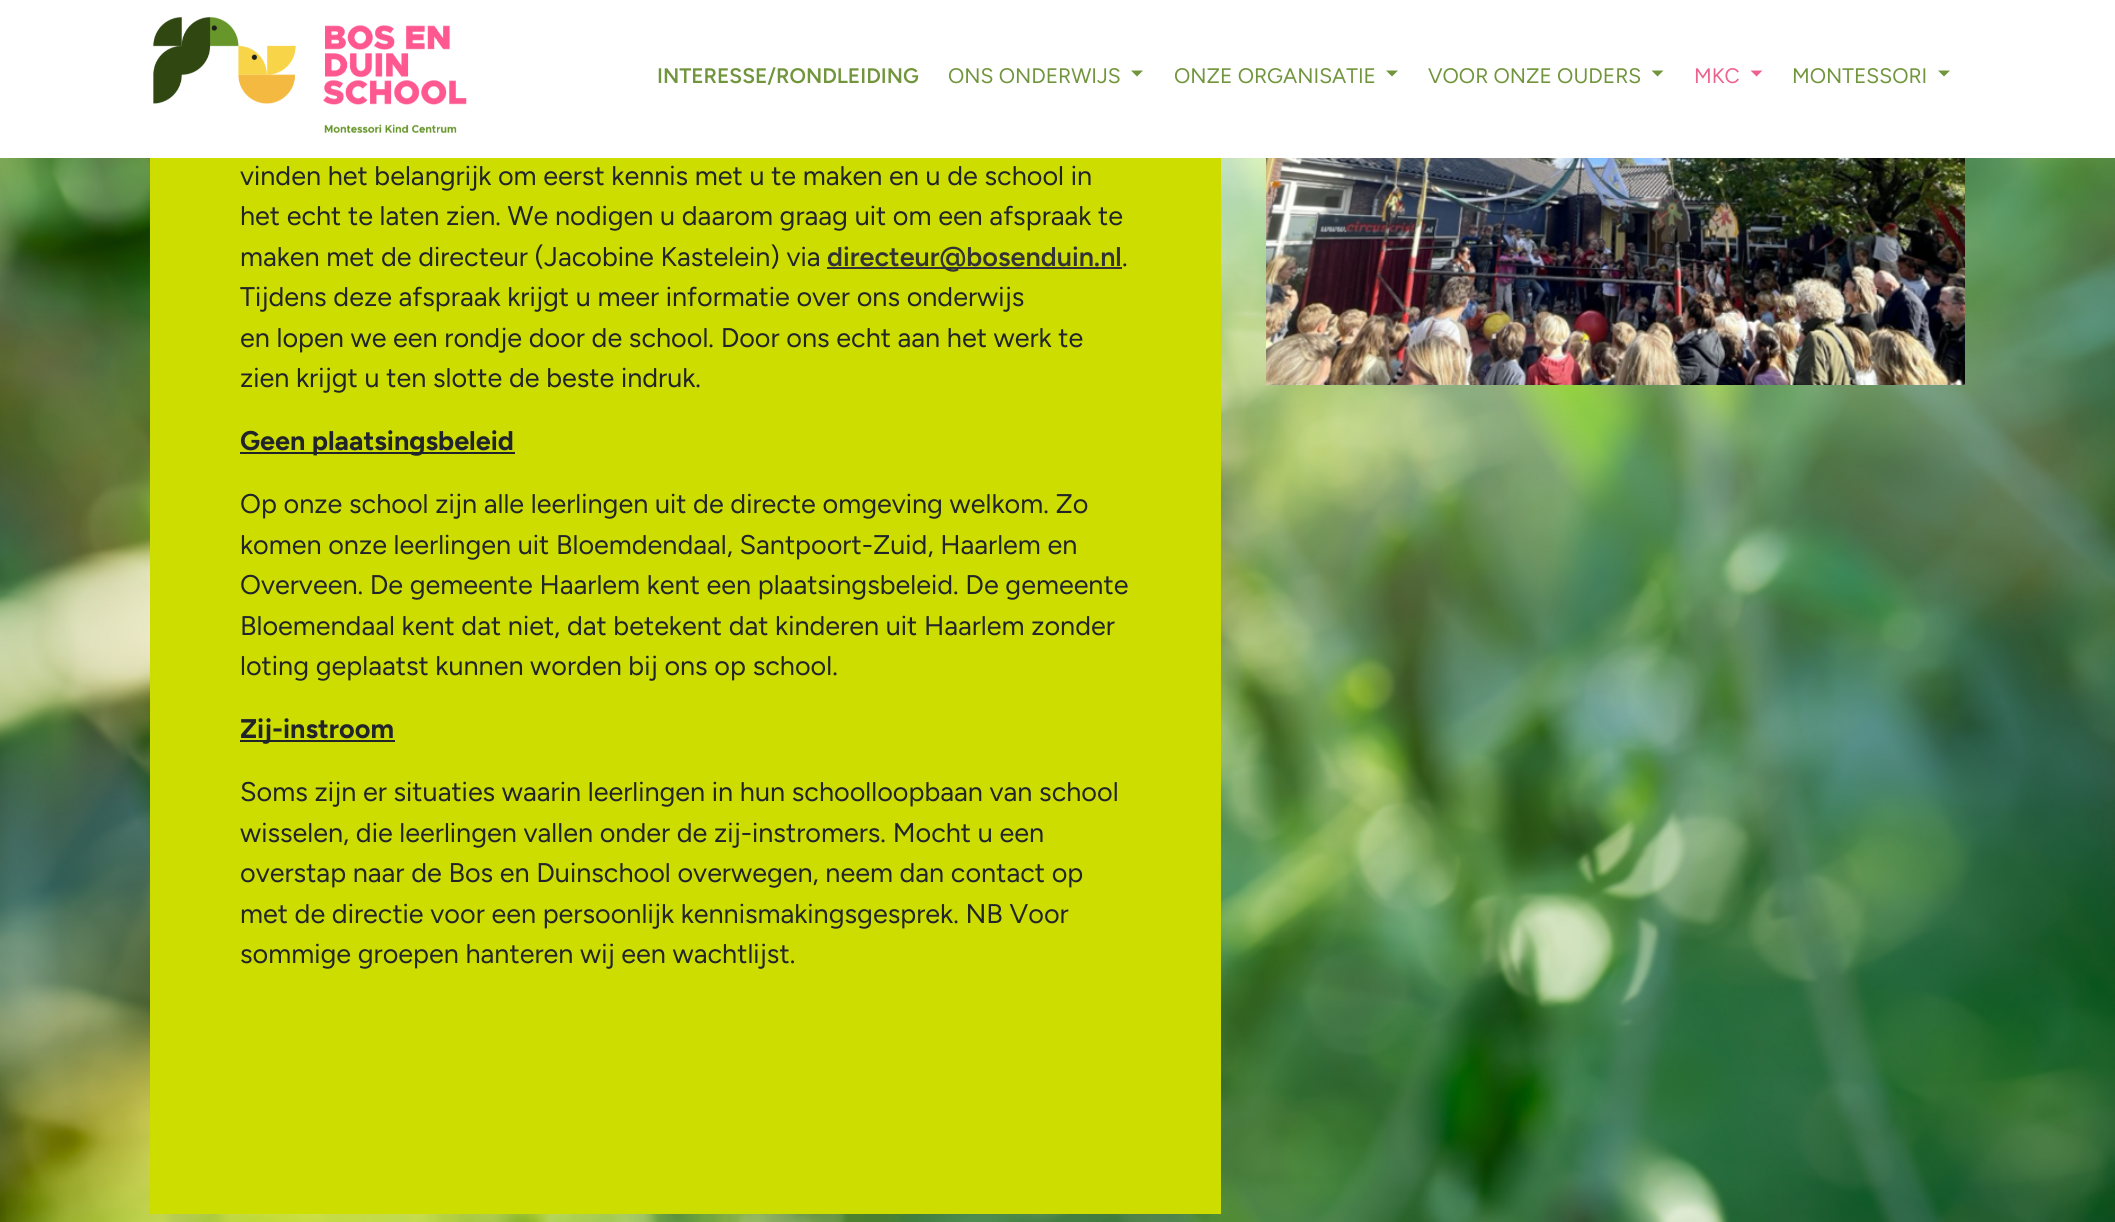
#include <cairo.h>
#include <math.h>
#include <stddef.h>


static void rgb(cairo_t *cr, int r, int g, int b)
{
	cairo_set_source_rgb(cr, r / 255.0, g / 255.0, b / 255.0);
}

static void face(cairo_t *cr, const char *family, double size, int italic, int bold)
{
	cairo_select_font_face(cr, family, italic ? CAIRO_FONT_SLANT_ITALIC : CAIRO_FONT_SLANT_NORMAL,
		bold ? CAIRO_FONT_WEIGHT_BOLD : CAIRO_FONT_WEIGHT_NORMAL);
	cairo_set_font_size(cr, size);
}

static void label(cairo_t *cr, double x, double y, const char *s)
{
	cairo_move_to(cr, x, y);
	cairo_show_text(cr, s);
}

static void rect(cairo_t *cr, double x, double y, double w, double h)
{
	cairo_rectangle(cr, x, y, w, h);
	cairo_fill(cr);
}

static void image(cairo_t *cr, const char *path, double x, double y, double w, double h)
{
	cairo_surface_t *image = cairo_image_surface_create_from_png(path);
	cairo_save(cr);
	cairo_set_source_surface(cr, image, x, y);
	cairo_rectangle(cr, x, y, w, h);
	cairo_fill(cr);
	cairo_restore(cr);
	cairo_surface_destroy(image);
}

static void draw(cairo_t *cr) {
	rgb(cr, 255, 255, 255);
	cairo_paint(cr);
	image(cr, "image0.png", 0, 158, 2115, 1064);
	image(cr, "image1.png", 153, 17, 314, 116);
	face(cr, "Figtree SemiBold", 21, 0, 0);
	rgb(cr, 113, 149, 61);
	label(cr, 657, 83, "INTERESSE/RONDLEIDING");
	face(cr, "Figtree", 21, 0, 0);
	label(cr, 948, 83, "ONS ONDERWIJS");
	cairo_new_path(cr);
	cairo_move_to(cr, 1131, 70.5);
	cairo_line_to(cr, 1143, 70.5);
	cairo_line_to(cr, 1137, 76.5);
	cairo_close_path(cr);
	cairo_fill(cr);
	label(cr, 1174, 83, "ONZE ORGANISATIE");
	cairo_new_path(cr);
	cairo_move_to(cr, 1386, 70.5);
	cairo_line_to(cr, 1398, 70.5);
	cairo_line_to(cr, 1392, 76.5);
	cairo_close_path(cr);
	cairo_fill(cr);
	label(cr, 1428, 83, "VOOR ONZE OUDERS");
	cairo_new_path(cr);
	cairo_move_to(cr, 1651.5, 70.5);
	cairo_line_to(cr, 1663.5, 70.5);
	cairo_line_to(cr, 1657.5, 76.5);
	cairo_close_path(cr);
	cairo_fill(cr);
	rgb(cr, 236, 99, 143);
	label(cr, 1694, 83, "MKC");
	cairo_new_path(cr);
	cairo_move_to(cr, 1750.5, 70.5);
	cairo_line_to(cr, 1762.5, 70.5);
	cairo_line_to(cr, 1756.5, 76.5);
	cairo_close_path(cr);
	cairo_fill(cr);
	rgb(cr, 113, 149, 61);
	label(cr, 1792, 83, "MONTESSORI");
	cairo_new_path(cr);
	cairo_move_to(cr, 1938, 70.5);
	cairo_line_to(cr, 1950, 70.5);
	cairo_line_to(cr, 1944, 76.5);
	cairo_close_path(cr);
	cairo_fill(cr);
	rgb(cr, 206, 221, 0);
	rect(cr, 150, 158, 1071, 1056);
	face(cr, "Figtree", 27, 0, 0);
	rgb(cr, 33, 37, 41);
	label(cr, 240, 185, "vinden het belangrijk om eerst kennis met u te maken en u de school in");
	label(cr, 240, 225, "het echt te laten zien. We nodigen u daarom graag uit om een afspraak te");
	label(cr, 240, 266, "maken met de directeur (Jacobine Kastelein) via");
	rgb(cr, 51, 51, 51);
	rect(cr, 827, 267, 295, 2);
	face(cr, "Figtree SemiBold", 27, 0, 0);
	label(cr, 827, 266, "directeur@bosenduin.nl");
	face(cr, "Figtree", 27, 0, 0);
	rgb(cr, 33, 37, 41);
	label(cr, 1122, 266, ".");
	label(cr, 240, 306, "Tijdens deze afspraak krijgt u meer informatie over ons onderwijs");
	label(cr, 240, 347, "en lopen we een rondje door de school. Door ons echt aan het werk te");
	label(cr, 240, 387, "zien krijgt u ten slotte de beste indruk.");
	rect(cr, 240, 452, 275, 2);
	face(cr, "Figtree", 27, 0, 1);
	label(cr, 240, 450, "Geen plaatsingsbeleid");
	face(cr, "Figtree", 27, 0, 0);
	label(cr, 240, 513, "Op onze school zijn alle leerlingen uit de directe omgeving welkom. Zo");
	label(cr, 240, 554, "komen onze leerlingen uit Bloemdendaal, Santpoort-Zuid, Haarlem en");
	label(cr, 240, 594, "Overveen. De gemeente Haarlem kent een plaatsingsbeleid. De gemeente");
	label(cr, 240, 635, "Bloemendaal kent dat niet, dat betekent dat kinderen uit Haarlem zonder");
	label(cr, 240, 675, "loting geplaatst kunnen worden bij ons op school.");
	rect(cr, 240, 740, 155, 2);
	face(cr, "Figtree", 27, 0, 1);
	label(cr, 240, 738, "Zij-instroom");
	face(cr, "Figtree", 27, 0, 0);
	label(cr, 240, 801, "Soms zijn er situaties waarin leerlingen in hun schoolloopbaan van school");
	label(cr, 240, 842, "wisselen, die leerlingen vallen onder de zij-instromers. Mocht u een");
	label(cr, 240, 882, "overstap naar de Bos en Duinschool overwegen, neem dan contact op");
	label(cr, 240, 923, "met de directie voor een persoonlijk kennismakingsgesprek. NB Voor");
	label(cr, 240, 963, "sommige groepen hanteren wij een wachtlijst.");
	image(cr, "image2.png", 1266, 158, 699, 227);
}

int main(void) {
	cairo_surface_t *surface = cairo_image_surface_create(CAIRO_FORMAT_RGB24, 2115, 1222);
	cairo_t *cr = cairo_create(surface);
	cairo_font_options_t *options = cairo_font_options_create();
	cairo_font_options_set_hint_metrics(options, CAIRO_HINT_METRICS_OFF);
	cairo_font_options_set_hint_style(options, CAIRO_HINT_STYLE_NONE);
	cairo_set_font_options(cr, options);
	cairo_set_miter_limit(cr, 4);
	draw(cr);
	cairo_surface_write_to_png(surface, "render.png");
	cairo_font_options_destroy(options);
	cairo_destroy(cr);
	cairo_surface_destroy(surface);
	return 0;
}
